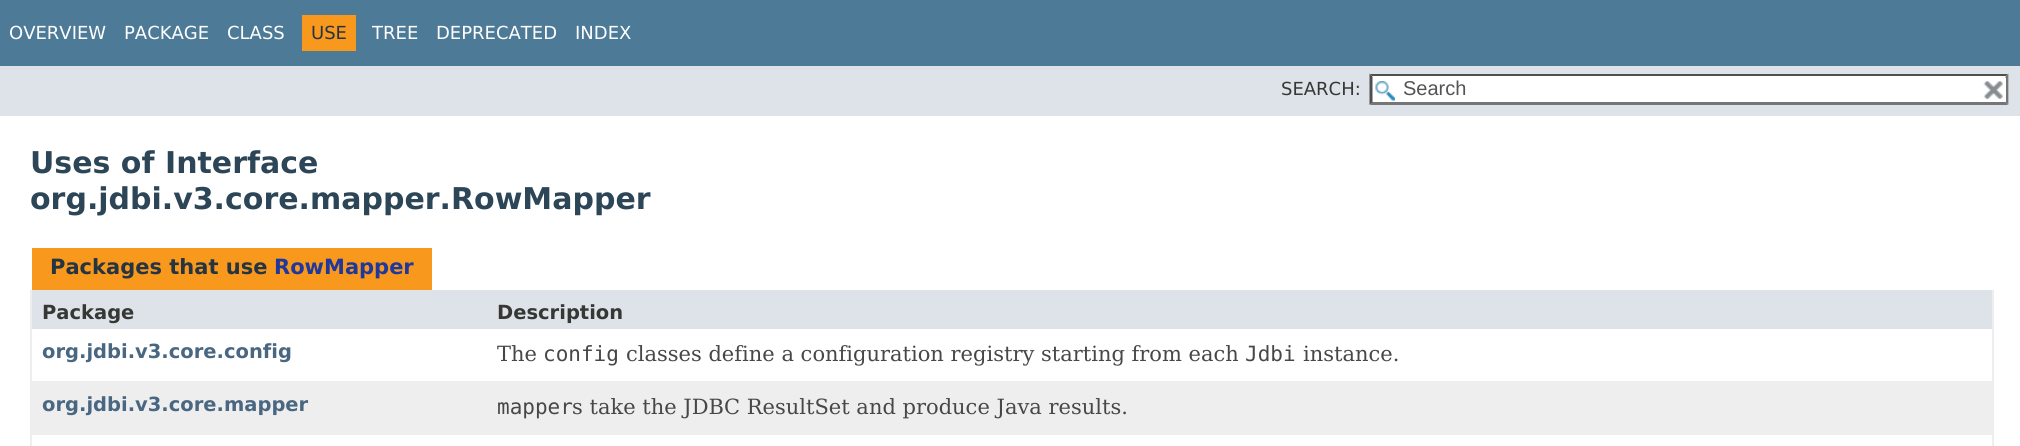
#include <cairo.h>
#include <math.h>
#include <stddef.h>


static void rgb(cairo_t *cr, int r, int g, int b)
{
	cairo_set_source_rgb(cr, r / 255.0, g / 255.0, b / 255.0);
}

static void face(cairo_t *cr, const char *family, double size, int italic, int bold)
{
	cairo_select_font_face(cr, family, italic ? CAIRO_FONT_SLANT_ITALIC : CAIRO_FONT_SLANT_NORMAL,
		bold ? CAIRO_FONT_WEIGHT_BOLD : CAIRO_FONT_WEIGHT_NORMAL);
	cairo_set_font_size(cr, size);
}

static void label(cairo_t *cr, double x, double y, const char *s)
{
	cairo_move_to(cr, x, y);
	cairo_show_text(cr, s);
}

static void rect(cairo_t *cr, double x, double y, double w, double h)
{
	cairo_rectangle(cr, x, y, w, h);
	cairo_fill(cr);
}

static void image(cairo_t *cr, const char *path, double x, double y, double w, double h)
{
	cairo_surface_t *image = cairo_image_surface_create_from_png(path);
	cairo_save(cr);
	cairo_set_source_surface(cr, image, x, y);
	cairo_rectangle(cr, x, y, w, h);
	cairo_fill(cr);
	cairo_restore(cr);
	cairo_surface_destroy(image);
}

static void draw(cairo_t *cr) {
	rgb(cr, 255, 255, 255);
	cairo_paint(cr);
	rgb(cr, 77, 122, 151);
	rect(cr, 0, 0, 2020, 66);
	face(cr, "DejaVu Sans", 18, 0, 0);
	rgb(cr, 255, 255, 255);
	label(cr, 9, 39, "OVERVIEW");
	label(cr, 124, 39, "PACKAGE");
	label(cr, 227, 39, "CLASS");
	rgb(cr, 248, 152, 29);
	rect(cr, 302, 15, 54, 36);
	rgb(cr, 37, 52, 65);
	label(cr, 311, 39, "USE");
	rgb(cr, 255, 255, 255);
	label(cr, 372, 39, "TREE");
	label(cr, 436, 39, "DEPRECATED");
	label(cr, 575, 39, "INDEX");
	rgb(cr, 222, 227, 233);
	rect(cr, 0, 66, 2020, 50);
	rgb(cr, 53, 56, 51);
	label(cr, 1281, 95, "SEARCH:");
	rgb(cr, 255, 255, 255);
	rect(cr, 1370, 74, 639, 31);
	image(cr, "image0.png", 1375, 81, 20, 20);
	rgb(cr, 79, 79, 79);
	cairo_new_path(cr);
	cairo_move_to(cr, 1370, 74);
	cairo_line_to(cr, 2008, 74);
	cairo_line_to(cr, 2006, 76);
	cairo_line_to(cr, 1372, 76);
	cairo_close_path(cr);
	cairo_fill(cr);
	rgb(cr, 118, 118, 118);
	cairo_new_path(cr);
	cairo_move_to(cr, 2008.5, 73.5);
	cairo_line_to(cr, 2008.5, 105);
	cairo_line_to(cr, 2005.5, 102);
	cairo_line_to(cr, 2005.5, 76.5);
	cairo_close_path(cr);
	cairo_fill(cr);
	cairo_new_path(cr);
	cairo_move_to(cr, 2008, 105);
	cairo_line_to(cr, 1370, 105);
	cairo_line_to(cr, 1372, 102);
	cairo_line_to(cr, 2006, 102);
	cairo_close_path(cr);
	cairo_fill(cr);
	rgb(cr, 79, 79, 79);
	cairo_new_path(cr);
	cairo_move_to(cr, 1369.5, 105);
	cairo_line_to(cr, 1369.5, 73.5);
	cairo_line_to(cr, 1372.5, 76.5);
	cairo_line_to(cr, 1372.5, 102);
	cairo_close_path(cr);
	cairo_fill(cr);
	face(cr, "Liberation Sans", 20, 0, 0);
	rgb(cr, 84, 84, 84);
	label(cr, 1403, 95, "Search");
	rgb(cr, 255, 255, 255);
	rect(cr, 2005, 78, 1, 24);
	image(cr, "image1.png", 1983, 81, 20, 19);
	face(cr, "DejaVu Sans", 30, 0, 1);
	rgb(cr, 44, 69, 87);
	label(cr, 30, 173, "Uses of Interface");
	label(cr, 30, 209, "org.jdbi.v3.core.mapper.RowMapper");
	rgb(cr, 248, 152, 29);
	rect(cr, 32, 248, 400, 42);
	face(cr, "DejaVu Sans", 21, 0, 1);
	rgb(cr, 37, 52, 65);
	label(cr, 50, 274, "Packages that use");
	rgb(cr, 31, 56, 156);
	label(cr, 274, 274, "RowMapper");
	rgb(cr, 238, 238, 238);
	rect(cr, 1992, 290, 2, 156);
	rect(cr, 30, 290, 2, 156);
	rgb(cr, 222, 227, 233);
	rect(cr, 32, 290, 1960, 39);
	face(cr, "DejaVu Sans", 19.5, 0, 1);
	rgb(cr, 53, 56, 51);
	label(cr, 42, 319, "Package");
	label(cr, 497, 319, "Description");
	rgb(cr, 74, 103, 130);
	label(cr, 42, 358, "org.jdbi.v3.core.config");
	face(cr, "DejaVu Serif", 21, 0, 0);
	rgb(cr, 71, 71, 71);
	label(cr, 497, 361, "The");
	face(cr, "DejaVu Sans Mono", 21, 0, 0);
	label(cr, 543, 361, "config");
	face(cr, "DejaVu Serif", 21, 0, 0);
	label(cr, 626, 361, "classes define a configuration registry starting from each");
	face(cr, "DejaVu Sans Mono", 21, 0, 0);
	label(cr, 1245, 361, "Jdbi");
	face(cr, "DejaVu Serif", 21, 0, 0);
	label(cr, 1303, 361, "instance.");
	rgb(cr, 238, 238, 239);
	rect(cr, 32, 381, 1960, 54);
	face(cr, "DejaVu Sans", 19.5, 0, 1);
	rgb(cr, 74, 103, 130);
	label(cr, 42, 411, "org.jdbi.v3.core.mapper");
	face(cr, "DejaVu Sans Mono", 21, 0, 0);
	rgb(cr, 71, 71, 71);
	label(cr, 497, 414, "mapper");
	face(cr, "DejaVu Serif", 21, 0, 0);
	label(cr, 572, 414, "s take the JDBC ResultSet and produce Java results.");
}

int main(void) {
	cairo_surface_t *surface = cairo_image_surface_create(CAIRO_FORMAT_RGB24, 2020, 446);
	cairo_t *cr = cairo_create(surface);
	cairo_font_options_t *options = cairo_font_options_create();
	cairo_font_options_set_hint_metrics(options, CAIRO_HINT_METRICS_OFF);
	cairo_font_options_set_hint_style(options, CAIRO_HINT_STYLE_NONE);
	cairo_set_font_options(cr, options);
	cairo_set_miter_limit(cr, 4);
	draw(cr);
	cairo_surface_write_to_png(surface, "render.png");
	cairo_font_options_destroy(options);
	cairo_destroy(cr);
	cairo_surface_destroy(surface);
	return 0;
}
